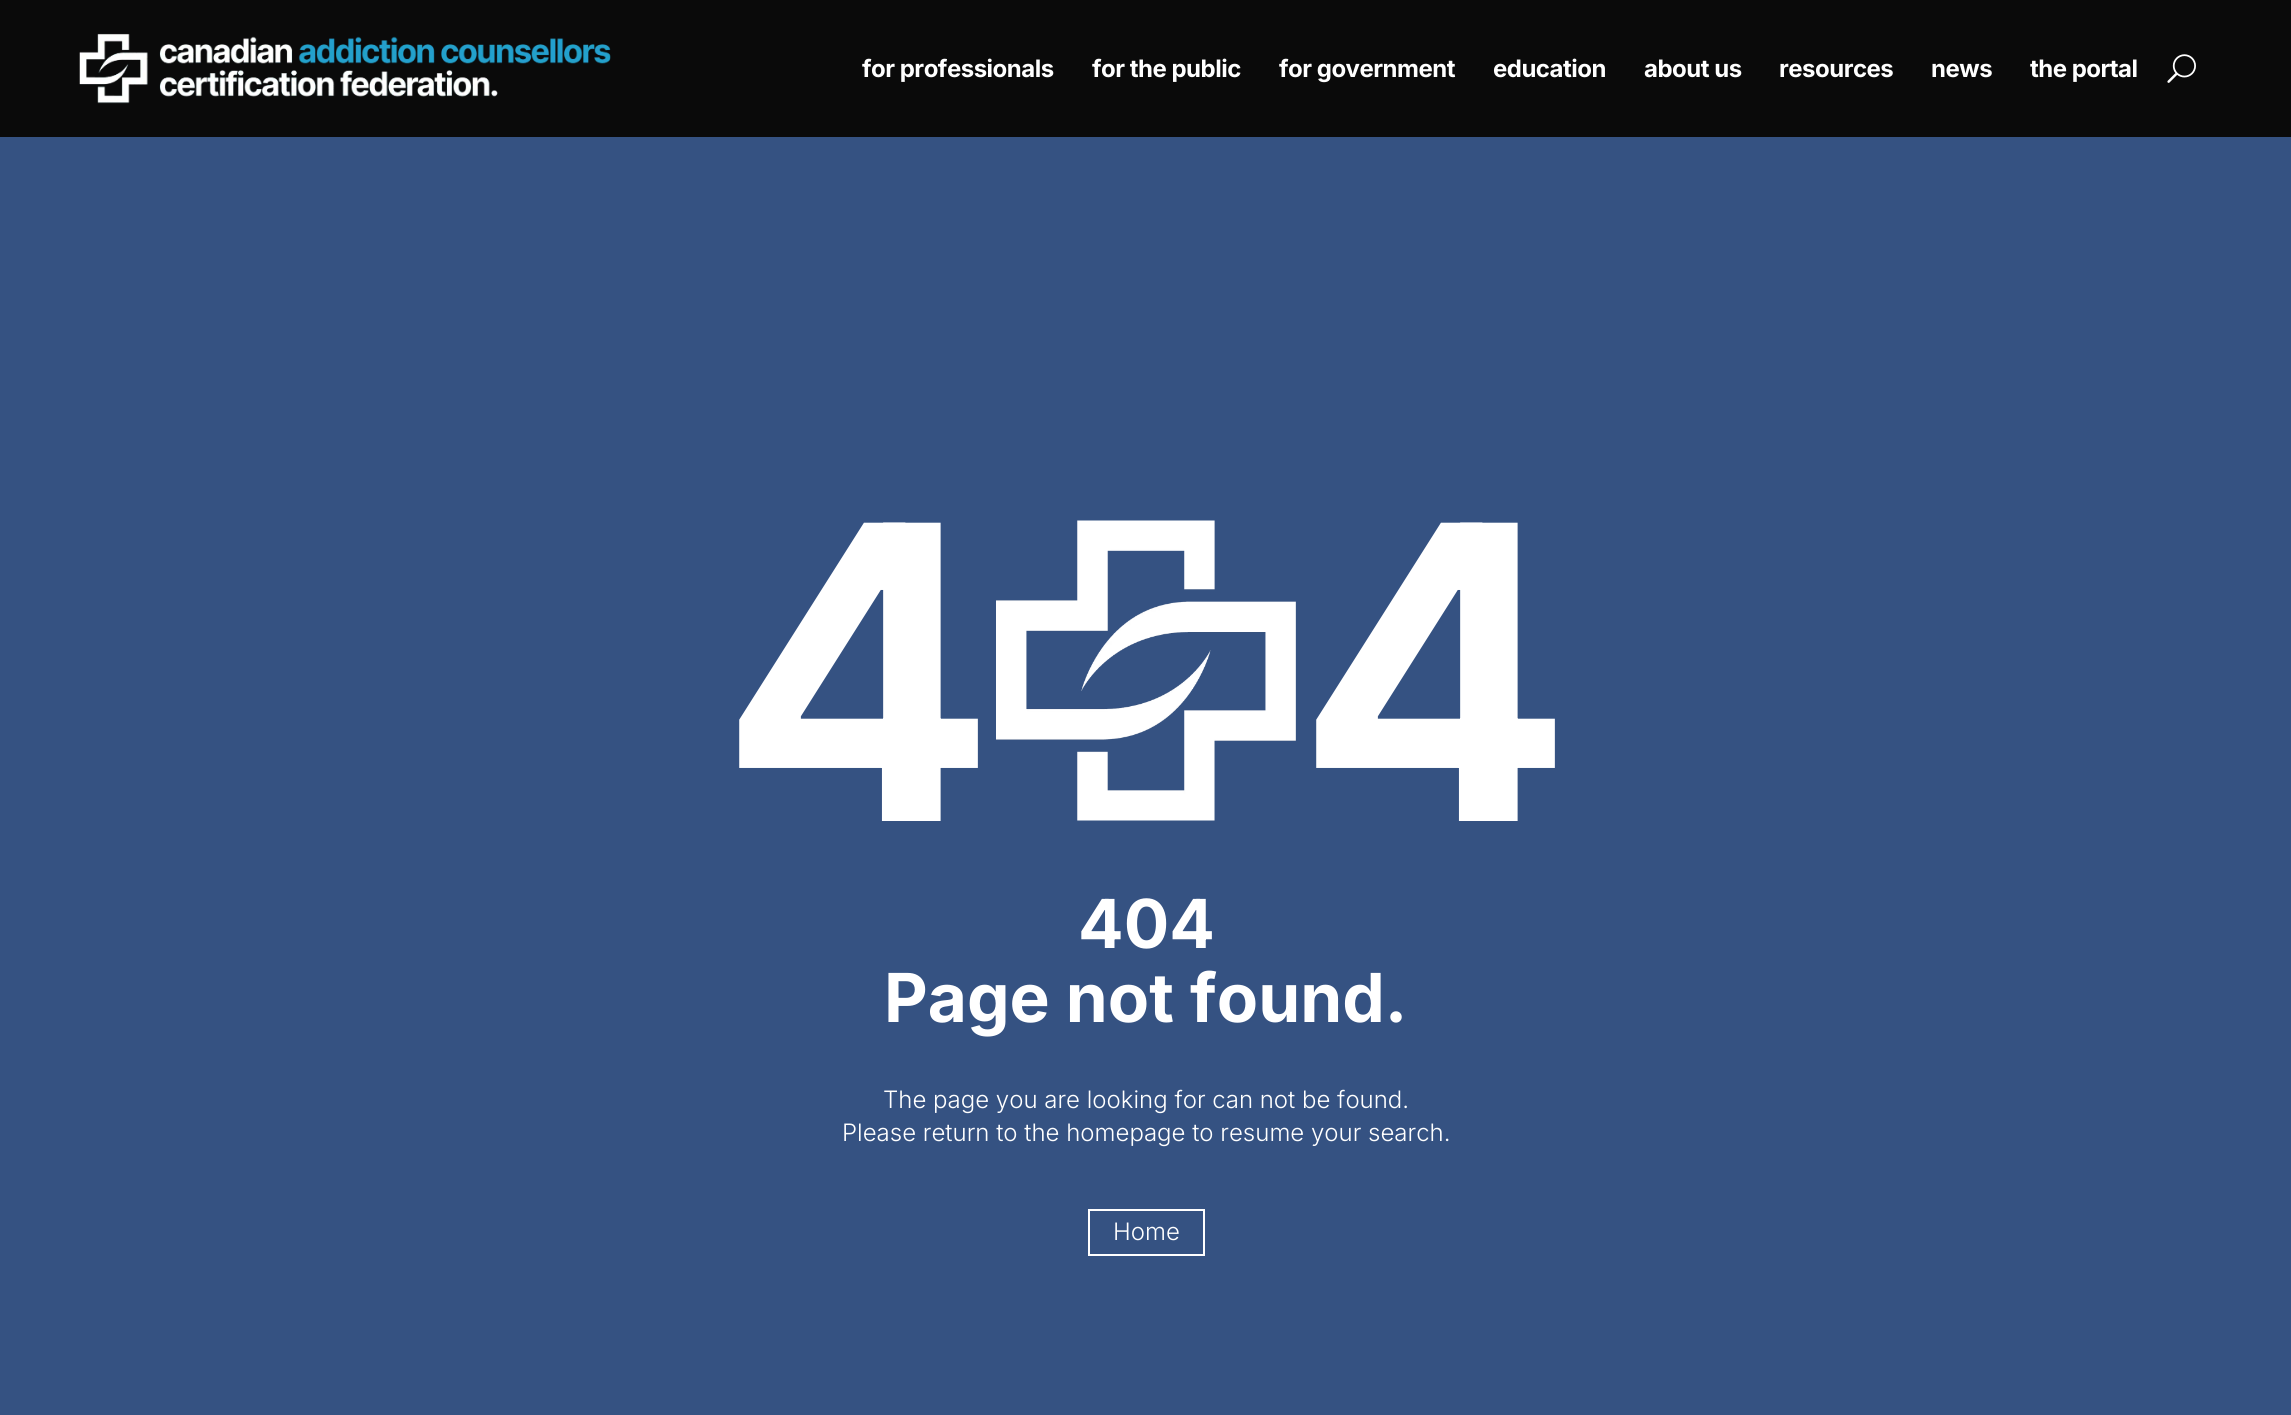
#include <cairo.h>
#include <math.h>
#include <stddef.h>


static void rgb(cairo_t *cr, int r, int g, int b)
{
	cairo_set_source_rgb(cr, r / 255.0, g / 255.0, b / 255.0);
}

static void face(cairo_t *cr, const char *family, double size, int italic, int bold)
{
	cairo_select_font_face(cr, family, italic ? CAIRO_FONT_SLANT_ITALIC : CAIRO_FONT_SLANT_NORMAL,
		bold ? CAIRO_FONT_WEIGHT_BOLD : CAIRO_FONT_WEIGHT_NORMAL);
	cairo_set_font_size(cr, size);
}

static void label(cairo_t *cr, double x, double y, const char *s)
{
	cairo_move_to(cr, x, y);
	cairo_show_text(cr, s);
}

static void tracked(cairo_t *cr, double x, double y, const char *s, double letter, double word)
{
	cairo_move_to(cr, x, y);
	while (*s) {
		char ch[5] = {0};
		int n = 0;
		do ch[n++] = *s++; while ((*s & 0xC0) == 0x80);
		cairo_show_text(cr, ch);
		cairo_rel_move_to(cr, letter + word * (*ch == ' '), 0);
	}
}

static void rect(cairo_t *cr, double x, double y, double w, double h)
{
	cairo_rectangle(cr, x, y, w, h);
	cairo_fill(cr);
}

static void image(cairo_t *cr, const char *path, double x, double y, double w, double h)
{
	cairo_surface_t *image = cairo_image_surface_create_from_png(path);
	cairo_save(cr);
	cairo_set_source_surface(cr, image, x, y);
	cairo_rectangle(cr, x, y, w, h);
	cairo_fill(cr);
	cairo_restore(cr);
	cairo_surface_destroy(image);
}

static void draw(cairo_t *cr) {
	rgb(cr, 53, 82, 130);
	cairo_paint(cr);
	rgb(cr, 10, 10, 10);
	rect(cr, 0, 0, 2291, 137);
	image(cr, "image0.png", 79, 33, 532, 71);
	face(cr, "Inter", 24, 0, 1);
	rgb(cr, 255, 255, 255);
	tracked(cr, 862, 77, "for professionals", -0.5, 0);
	tracked(cr, 1092, 77, "for the public", -0.5, 0);
	tracked(cr, 1279, 77, "for government", -0.5, 0);
	tracked(cr, 1493, 77, "education", -0.5, 0);
	tracked(cr, 1644, 77, "about us", -0.5, 0);
	tracked(cr, 1779, 77, "resources", -0.5, 0);
	tracked(cr, 1931, 77, "news", -0.5, 0);
	tracked(cr, 2030, 77, "the portal", -0.5, 0);
	image(cr, "image1.png", 2167, 54, 29, 29);
	face(cr, "Inter", 410, 0, 1);
	label(cr, 719, 821, "4");
	image(cr, "image2.png", 996, 520, 300, 301);
	label(cr, 1296, 821, "4");
	face(cr, "Inter", 67.5, 0, 1);
	label(cr, 1078, 948, "404");
	label(cr, 884, 1022, "Page not found.");
	face(cr, "Inter Light", 24, 0, 0);
	label(cr, 883, 1108, "The page you are looking for can not be found.");
	label(cr, 842, 1141, "Please return to the homepage to resume your search.");
	cairo_rectangle(cr, 1089, 1210, 115, 45);
	cairo_stroke(cr);
	label(cr, 1113, 1240, "Home");
}

int main(void) {
	cairo_surface_t *surface = cairo_image_surface_create(CAIRO_FORMAT_RGB24, 2291, 1415);
	cairo_t *cr = cairo_create(surface);
	cairo_font_options_t *options = cairo_font_options_create();
	cairo_font_options_set_hint_metrics(options, CAIRO_HINT_METRICS_OFF);
	cairo_font_options_set_hint_style(options, CAIRO_HINT_STYLE_NONE);
	cairo_set_font_options(cr, options);
	cairo_set_miter_limit(cr, 4);
	draw(cr);
	cairo_surface_write_to_png(surface, "render.png");
	cairo_font_options_destroy(options);
	cairo_destroy(cr);
	cairo_surface_destroy(surface);
	return 0;
}
